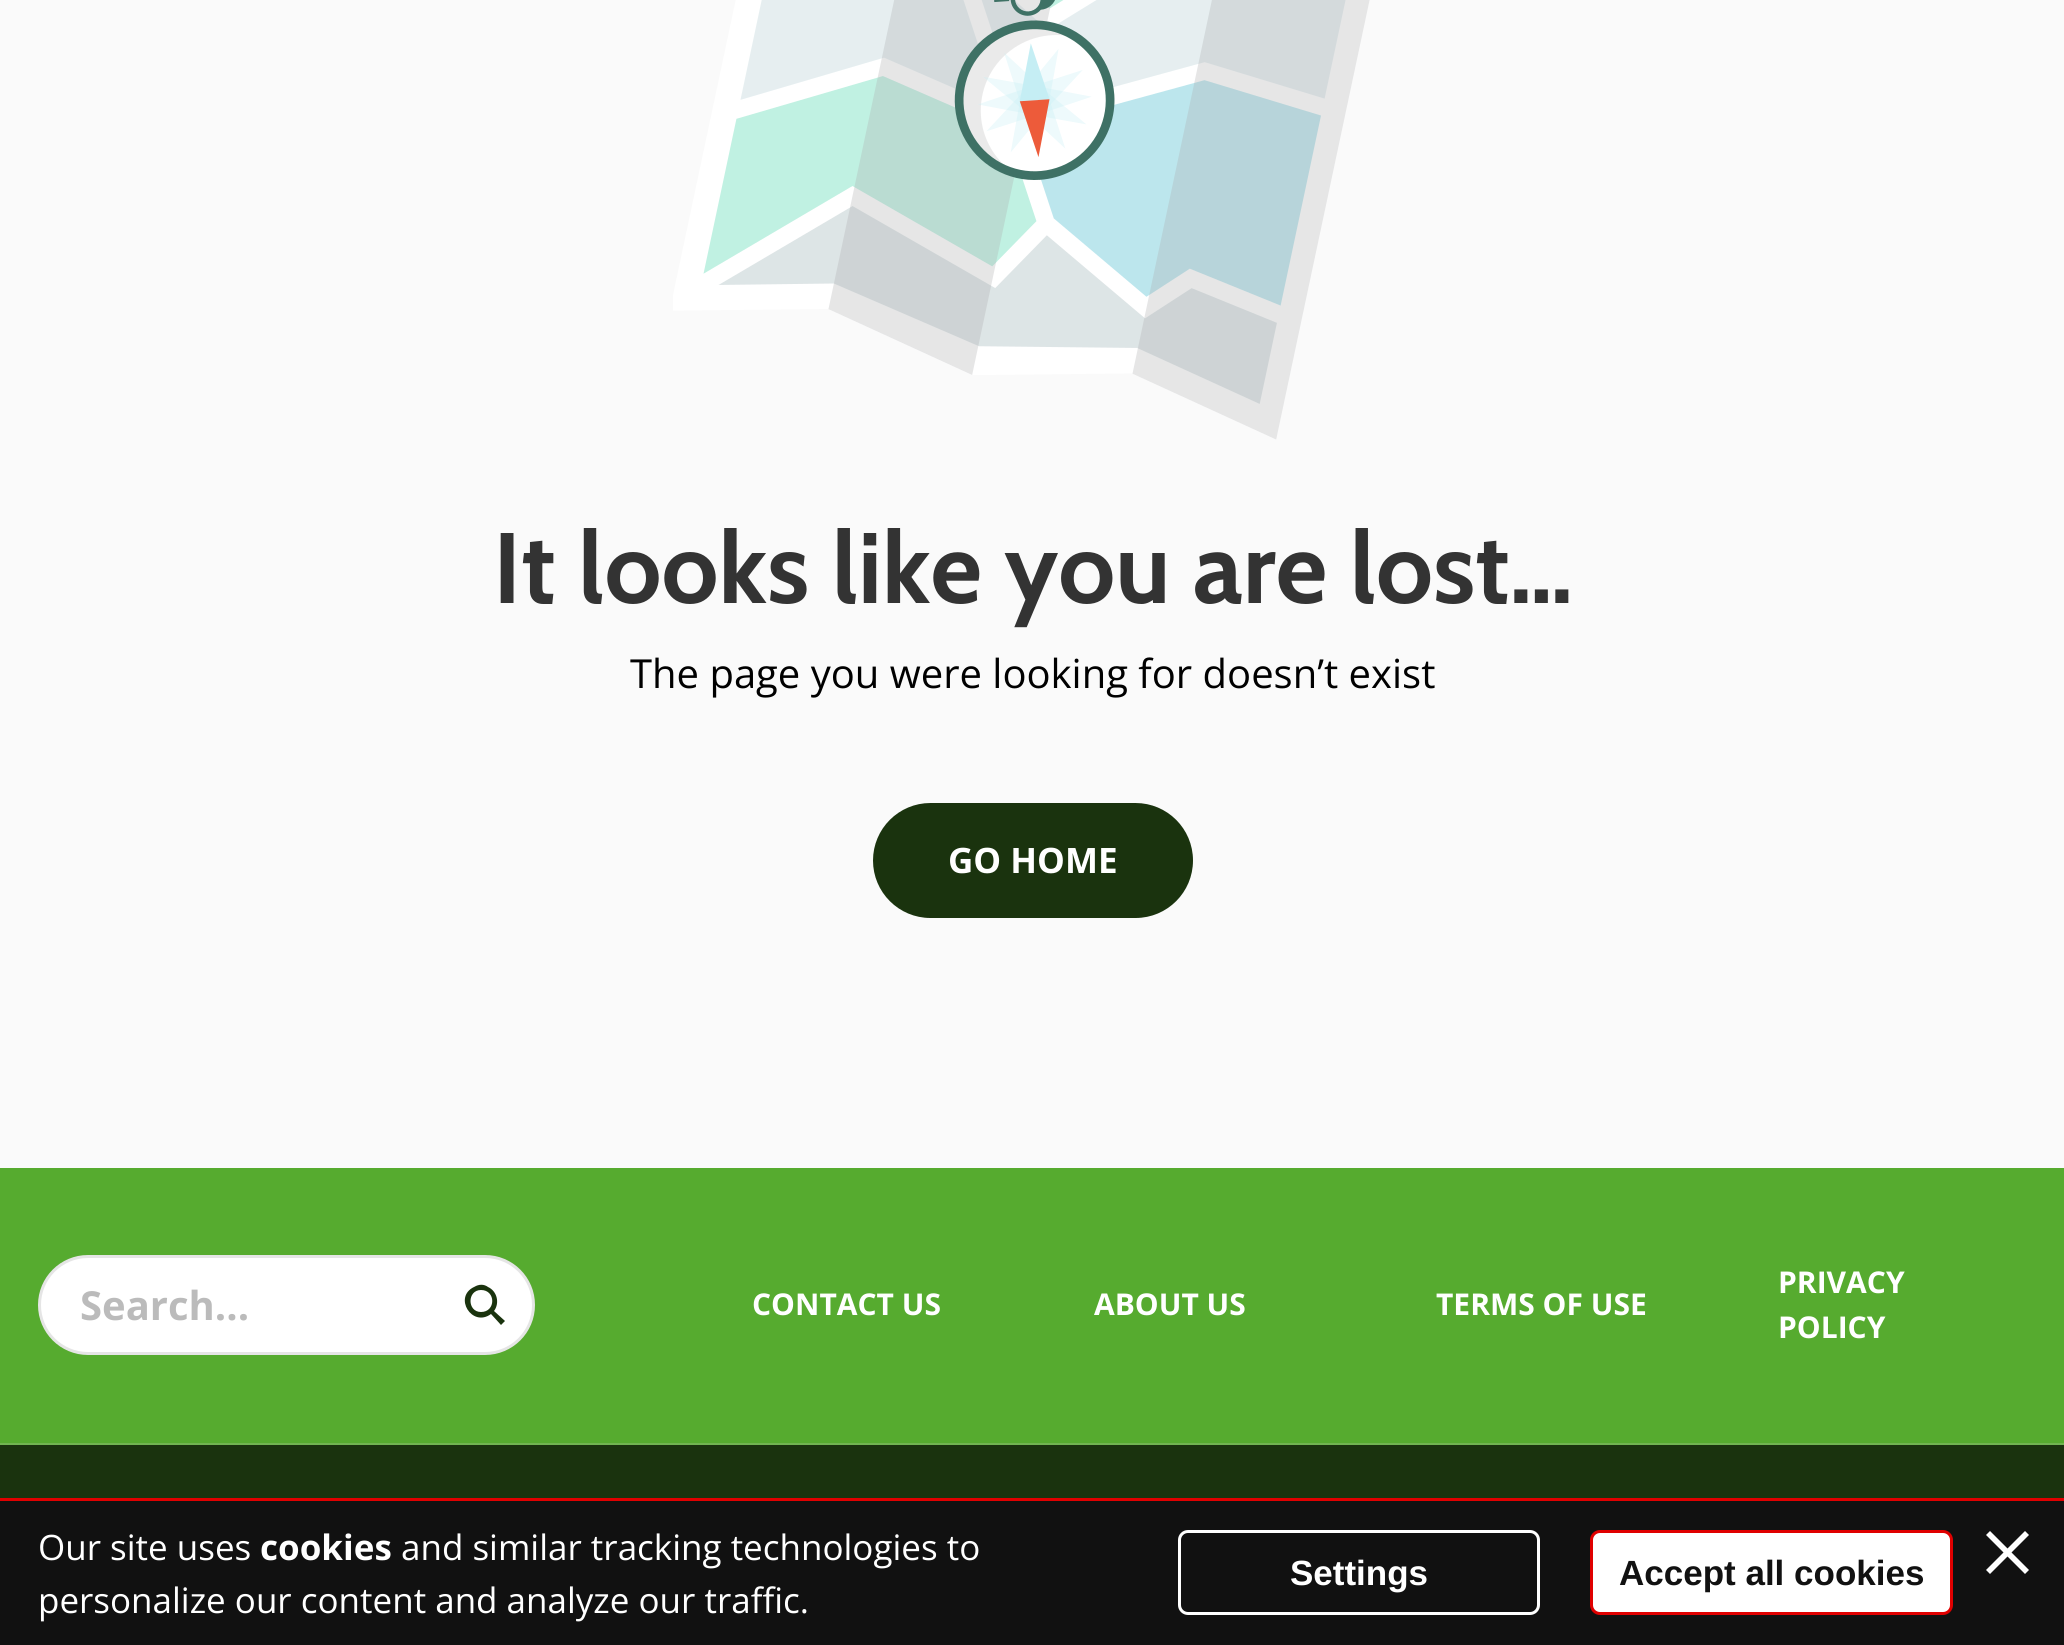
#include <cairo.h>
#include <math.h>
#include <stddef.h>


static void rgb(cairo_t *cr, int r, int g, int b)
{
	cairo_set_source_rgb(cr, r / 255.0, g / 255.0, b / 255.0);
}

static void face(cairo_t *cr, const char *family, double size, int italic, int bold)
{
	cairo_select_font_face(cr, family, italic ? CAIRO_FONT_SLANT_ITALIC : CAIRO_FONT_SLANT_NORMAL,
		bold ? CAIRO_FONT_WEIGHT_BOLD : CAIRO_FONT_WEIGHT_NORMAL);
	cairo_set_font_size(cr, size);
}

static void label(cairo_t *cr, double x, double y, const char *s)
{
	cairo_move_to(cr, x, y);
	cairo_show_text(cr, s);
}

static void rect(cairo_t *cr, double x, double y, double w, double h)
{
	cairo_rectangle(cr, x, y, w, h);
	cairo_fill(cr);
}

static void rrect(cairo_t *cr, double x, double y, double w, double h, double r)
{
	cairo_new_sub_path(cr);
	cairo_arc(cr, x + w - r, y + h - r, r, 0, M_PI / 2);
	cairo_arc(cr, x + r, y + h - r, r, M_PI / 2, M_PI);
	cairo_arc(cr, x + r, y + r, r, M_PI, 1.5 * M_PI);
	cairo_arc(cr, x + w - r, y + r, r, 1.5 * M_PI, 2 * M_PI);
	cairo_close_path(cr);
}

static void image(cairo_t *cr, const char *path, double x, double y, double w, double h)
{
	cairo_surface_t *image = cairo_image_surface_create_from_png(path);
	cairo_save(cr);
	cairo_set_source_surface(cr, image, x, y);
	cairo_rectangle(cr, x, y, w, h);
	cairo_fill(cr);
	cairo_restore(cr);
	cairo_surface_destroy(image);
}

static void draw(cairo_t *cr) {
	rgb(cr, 250, 250, 250);
	cairo_paint(cr);
	image(cr, "image0.png", 673, 0, 697, 440);
	face(cr, "Cabin", 100, 0, 1);
	rgb(cr, 51, 51, 51);
	label(cr, 493, 603, "It looks like you are lost…");
	face(cr, "Open Sans", 40, 0, 0);
	rgb(cr, 0, 0, 0);
	label(cr, 630, 688, "The page you were looking for doesn’t exist");
	rgb(cr, 26, 51, 14);
	rrect(cr, 873, 803, 320, 115, 57.5);
	cairo_fill(cr);
	face(cr, "Open Sans", 35, 0, 1);
	rgb(cr, 255, 255, 255);
	label(cr, 948, 873, "GO HOME");
	rgb(cr, 86, 171, 47);
	rect(cr, 0, 1168, 2064, 275);
	rgb(cr, 113, 181, 81);
	rect(cr, 0, 1443, 2064, 2);
	rgb(cr, 255, 255, 255);
	rrect(cr, 39.5, 1256.5, 494, 97, 48.5);
	cairo_fill_preserve(cr);
	rgb(cr, 229, 229, 229);
	cairo_set_line_width(cr, 3);
	cairo_stroke(cr);
	face(cr, "Open Sans", 40, 0, 1);
	rgb(cr, 187, 187, 187);
	label(cr, 80, 1320, "Search...");
	rgb(cr, 26, 51, 14);
	cairo_new_path(cr);
	cairo_move_to(cr, 494, 1311);
	cairo_curve_to(cr, 500, 1303, 497, 1291, 488, 1287);
	cairo_curve_to(cr, 484, 1284, 479, 1284, 474, 1287);
	cairo_curve_to(cr, 453, 1297, 472, 1328, 491, 1314);
	cairo_line_to(cr, 501, 1325);
	cairo_line_to(cr, 505, 1321);
	cairo_close_path(cr);
	cairo_move_to(cr, 481, 1312);
	cairo_curve_to(cr, 467, 1312, 467, 1290, 481, 1290);
	cairo_curve_to(cr, 496, 1290, 496, 1312, 481, 1312);
	cairo_close_path(cr);
	cairo_fill(cr);
	face(cr, "Open Sans", 30, 0, 1);
	rgb(cr, 255, 255, 255);
	label(cr, 752, 1315, "CONTACT US");
	label(cr, 1094, 1315, "ABOUT US");
	label(cr, 1436, 1315, "TERMS OF USE");
	label(cr, 1778, 1293, "PRIVACY");
	label(cr, 1778, 1338, "POLICY");
	rgb(cr, 26, 51, 14);
	rect(cr, 0, 1445, 2064, 53);
	rgb(cr, 17, 17, 17);
	rect(cr, 0, 1501, 2064, 144);
	rgb(cr, 224, 0, 0);
	rect(cr, 0, 1498, 2064, 3);
	face(cr, "Open Sans", 35, 0, 0);
	rgb(cr, 255, 255, 255);
	label(cr, 38, 1560, "Our site uses");
	face(cr, "Open Sans", 35, 0, 1);
	label(cr, 260, 1560, "cookies");
	face(cr, "Open Sans", 35, 0, 0);
	label(cr, 401, 1560, "and similar tracking technologies to");
	label(cr, 38, 1613, "personalize our content and analyze our traffic.");
	rrect(cr, 1179.5, 1531.5, 359, 82, 8.5);
	cairo_stroke(cr);
	face(cr, "Liberation Sans", 35, 0, 1);
	label(cr, 1290, 1585, "Settings");
	rrect(cr, 1591.5, 1531.5, 360, 82, 8.5);
	cairo_fill_preserve(cr);
	rgb(cr, 224, 0, 0);
	cairo_stroke(cr);
	rgb(cr, 17, 17, 17);
	label(cr, 1619, 1585, "Accept all cookies");
	rgb(cr, 255, 255, 255);
	cairo_new_path(cr);
	cairo_move_to(cr, 2025, 1531);
	cairo_line_to(cr, 2029, 1535);
	cairo_line_to(cr, 1990, 1574);
	cairo_line_to(cr, 1986, 1570);
	cairo_close_path(cr);
	cairo_fill(cr);
	cairo_new_path(cr);
	cairo_move_to(cr, 1986, 1535);
	cairo_line_to(cr, 1990, 1531);
	cairo_line_to(cr, 2029, 1570);
	cairo_line_to(cr, 2025, 1574);
	cairo_close_path(cr);
	cairo_fill(cr);
}

int main(void) {
	cairo_surface_t *surface = cairo_image_surface_create(CAIRO_FORMAT_RGB24, 2064, 1645);
	cairo_t *cr = cairo_create(surface);
	cairo_font_options_t *options = cairo_font_options_create();
	cairo_font_options_set_hint_metrics(options, CAIRO_HINT_METRICS_OFF);
	cairo_font_options_set_hint_style(options, CAIRO_HINT_STYLE_NONE);
	cairo_set_font_options(cr, options);
	cairo_set_miter_limit(cr, 4);
	draw(cr);
	cairo_surface_write_to_png(surface, "render.png");
	cairo_font_options_destroy(options);
	cairo_destroy(cr);
	cairo_surface_destroy(surface);
	return 0;
}
